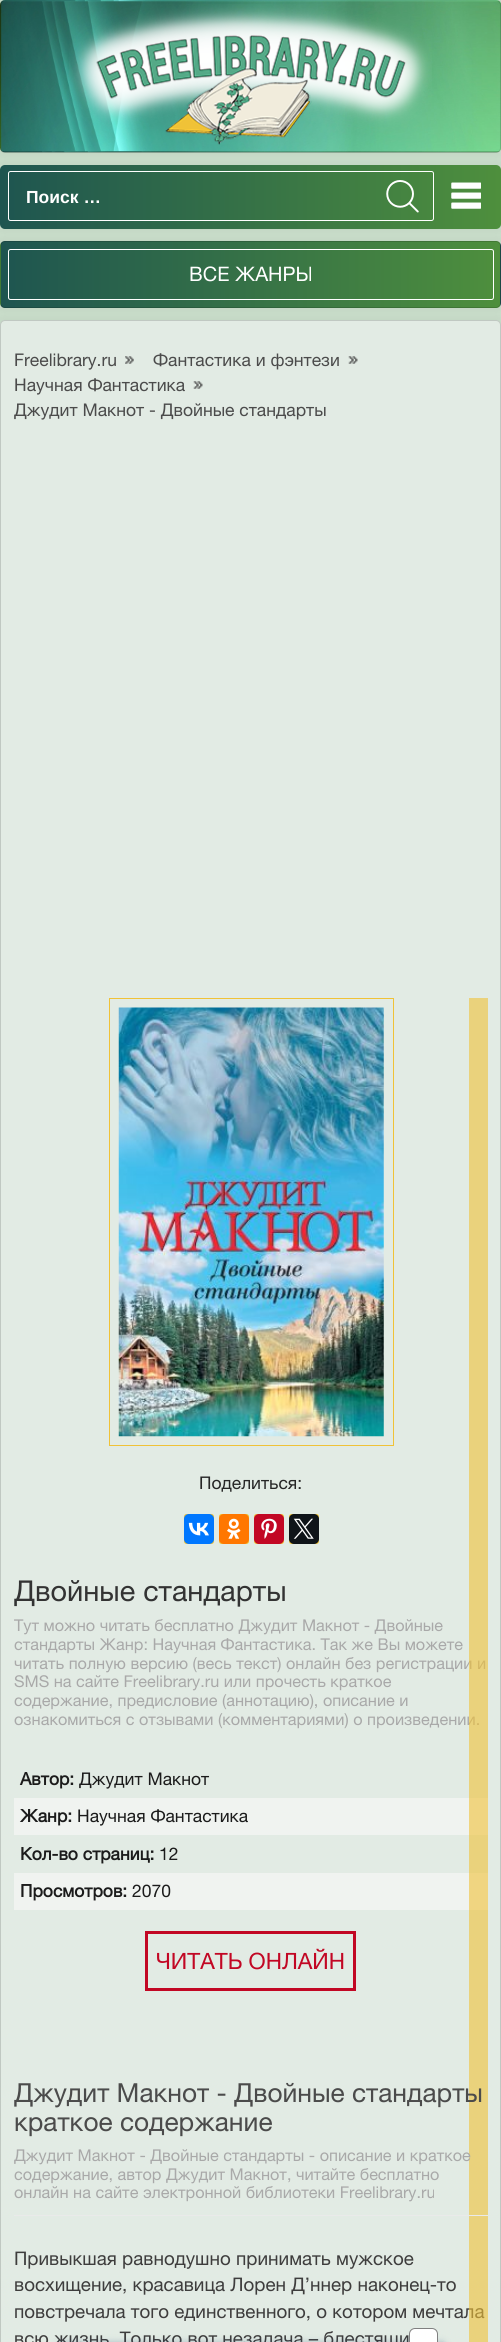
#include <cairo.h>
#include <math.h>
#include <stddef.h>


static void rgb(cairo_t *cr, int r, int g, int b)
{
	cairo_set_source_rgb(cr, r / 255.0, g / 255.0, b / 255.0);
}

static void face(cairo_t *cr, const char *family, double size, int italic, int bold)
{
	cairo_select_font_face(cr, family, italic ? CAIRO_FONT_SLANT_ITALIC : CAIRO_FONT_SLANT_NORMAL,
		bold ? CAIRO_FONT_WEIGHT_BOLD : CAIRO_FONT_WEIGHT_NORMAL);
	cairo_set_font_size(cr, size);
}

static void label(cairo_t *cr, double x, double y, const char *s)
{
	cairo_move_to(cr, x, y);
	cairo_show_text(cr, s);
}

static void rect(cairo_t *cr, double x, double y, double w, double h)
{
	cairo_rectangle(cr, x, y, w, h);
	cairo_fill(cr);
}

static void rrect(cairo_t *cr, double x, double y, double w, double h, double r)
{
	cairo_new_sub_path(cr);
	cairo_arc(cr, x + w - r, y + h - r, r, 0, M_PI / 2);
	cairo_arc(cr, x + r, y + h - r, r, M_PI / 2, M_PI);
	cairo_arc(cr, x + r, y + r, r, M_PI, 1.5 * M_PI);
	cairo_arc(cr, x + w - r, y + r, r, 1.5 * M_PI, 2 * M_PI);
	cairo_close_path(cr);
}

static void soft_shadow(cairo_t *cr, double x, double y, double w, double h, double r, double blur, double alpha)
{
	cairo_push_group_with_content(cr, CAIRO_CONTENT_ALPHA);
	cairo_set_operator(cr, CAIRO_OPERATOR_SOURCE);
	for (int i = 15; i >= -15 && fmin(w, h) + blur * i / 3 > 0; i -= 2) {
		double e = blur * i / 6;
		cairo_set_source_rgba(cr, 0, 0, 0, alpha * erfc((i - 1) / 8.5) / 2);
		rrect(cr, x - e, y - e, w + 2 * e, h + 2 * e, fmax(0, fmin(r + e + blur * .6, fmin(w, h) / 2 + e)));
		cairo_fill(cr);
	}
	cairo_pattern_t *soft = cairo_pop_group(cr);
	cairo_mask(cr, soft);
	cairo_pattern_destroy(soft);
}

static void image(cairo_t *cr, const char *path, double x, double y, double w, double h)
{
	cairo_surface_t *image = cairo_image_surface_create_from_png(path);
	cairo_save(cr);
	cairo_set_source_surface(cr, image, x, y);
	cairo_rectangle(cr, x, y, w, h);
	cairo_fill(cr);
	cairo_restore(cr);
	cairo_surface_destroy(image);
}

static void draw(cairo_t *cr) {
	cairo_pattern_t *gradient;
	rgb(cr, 200, 220, 201);
	cairo_paint(cr);
	rgb(cr, 0, 0, 0);
	soft_shadow(cr, 0, 0, 501, 153, 5, 4, 0.05);
	image(cr, "image0.png", 0, 0, 501, 153);
	rrect(cr, 0.5, 0.5, 500, 152, 4.5);
	cairo_set_source_rgba(cr, 0, 0, 0, 0.15);
	cairo_set_line_width(cr, 1);
	cairo_stroke(cr);
	image(cr, "image1.png", 69, 4, 363, 141);
	rgb(cr, 0, 0, 0);
	soft_shadow(cr, 0, 241, 501, 67, 5, 4, 0.05);
	cairo_save(cr);
	rrect(cr, 0, 241, 501, 67, 5);
	cairo_clip(cr);
	gradient = cairo_pattern_create_linear(-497, 274, 1.2, 274);
	cairo_pattern_add_color_stop_rgba(gradient, 0, 0.118, 0.333, 0.314, 1);
	cairo_pattern_add_color_stop_rgba(gradient, 1, 0.306, 0.561, 0.239, 1);
	cairo_set_source(cr, gradient);
	cairo_pattern_destroy(gradient);
	rect(cr, 0, 241, 1, 67);
	gradient = cairo_pattern_create_linear(1.2, 274, 500, 274);
	cairo_pattern_add_color_stop_rgba(gradient, 0, 0.118, 0.333, 0.314, 1);
	cairo_pattern_add_color_stop_rgba(gradient, 1, 0.306, 0.561, 0.239, 1);
	cairo_set_source(cr, gradient);
	cairo_pattern_destroy(gradient);
	rect(cr, 1, 241, 499, 67);
	gradient = cairo_pattern_create_linear(500, 274, 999, 274);
	cairo_pattern_add_color_stop_rgba(gradient, 0, 0.118, 0.333, 0.314, 1);
	cairo_pattern_add_color_stop_rgba(gradient, 1, 0.306, 0.561, 0.239, 1);
	cairo_set_source(cr, gradient);
	cairo_pattern_destroy(gradient);
	rect(cr, 500, 241, 1, 67);
	cairo_restore(cr);
	rrect(cr, 0.5, 241.5, 500, 66, 4.5);
	cairo_set_source_rgba(cr, 0, 0, 0, 0.15);
	cairo_stroke(cr);
	rgb(cr, 0, 0, 0);
	soft_shadow(cr, 0, 165, 501, 64, 5, 4, 0.05);
	gradient = cairo_pattern_create_linear(0, 197, 501, 197);
	cairo_pattern_add_color_stop_rgba(gradient, 0, 0.118, 0.333, 0.314, 1);
	cairo_pattern_add_color_stop_rgba(gradient, 1, 0.306, 0.561, 0.239, 1);
	cairo_set_source(cr, gradient);
	cairo_pattern_destroy(gradient);
	rrect(cr, 0, 165, 501, 64, 5);
	cairo_fill(cr);
	rrect(cr, 8.5, 171.5, 425, 49, 2);
	rgb(cr, 255, 255, 255);
	cairo_stroke(cr);
	face(cr, "Liberation Sans", 17.5, 0, 1);
	label(cr, 26, 203, "Поиск …");
	image(cr, "image2.png", 386, 180, 33, 33);
	image(cr, "image3.png", 451, 182, 30, 27);
	rrect(cr, 8.5, 249.5, 485, 50, 2);
	cairo_stroke(cr);
	face(cr, "Helvetica Neue", 20, 0, 0);
	label(cr, 189, 281, "ВСЕ ЖАНРЫ");
	rgb(cr, 0, 0, 0);
	soft_shadow(cr, 0, 320, 501, 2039, 5, 4, 0.05);
	rgb(cr, 226, 235, 228);
	rrect(cr, 0, 320, 501, 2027, 5);
	cairo_fill(cr);
	rrect(cr, 0.5, 320.5, 500, 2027, 4.5);
	cairo_set_source_rgba(cr, 0, 0, 0, 0.15);
	cairo_stroke(cr);
	face(cr, "Helvetica Neue", 17.5, 0, 0);
	rgb(cr, 75, 75, 75);
	label(cr, 14, 366, "Freelibrary.ru");
	image(cr, "image4.png", 125, 356, 9, 8);
	label(cr, 153, 366, "Фантастика и фэнтези");
	image(cr, "image5.png", 348, 356, 10, 8);
	label(cr, 14, 391, "Научная Фантастика");
	image(cr, "image6.png", 193, 381, 10, 8);
	label(cr, 14, 416, "Джудит Макнот - Двойные стандарты");
	face(cr, "Helvetica Neue", 16.25, 0, 0);
	rgb(cr, 169, 169, 169);
	label(cr, 14, 1669, "читать полную версию (весь текст) онлайн без регистрации и");
	label(cr, 14, 1725, "ознакомиться с отзывами (комментариями) о произведении.");
	rgb(cr, 240, 243, 240);
	rect(cr, 14, 1798, 474, 37);
	rect(cr, 14, 1873, 474, 37);
	face(cr, "Helvetica Neue", 18.75, 0, 0);
	rgb(cr, 62, 61, 61);
	label(cr, 14, 2318, "повстречала того единственного, о котором мечтала");
	cairo_set_source_rgba(cr, 0.941, 0.761, 0.216, 0.6);
	rect(cr, 469, 998, 19, 1344);
	cairo_rectangle(cr, 109.5, 998.5, 284, 447);
	rgb(cr, 240, 194, 55);
	cairo_stroke(cr);
	image(cr, "image7.png", 118, 1007, 266, 430);
	face(cr, "Helvetica Neue", 17.5, 0, 0);
	rgb(cr, 38, 38, 38);
	label(cr, 199, 1489, "Поделиться:");
	rgb(cr, 240, 194, 55);
	rrect(cr, 184, 1514, 30, 30, 2.5);
	cairo_fill(cr);
	rgb(cr, 0, 119, 255);
	rrect(cr, 184, 1514, 30, 30, 5);
	cairo_fill(cr);
	image(cr, "image8.png", 188, 1522, 21, 14);
	rgb(cr, 240, 194, 55);
	rrect(cr, 219, 1514, 30, 30, 2.5);
	cairo_fill(cr);
	rgb(cr, 255, 119, 0);
	rrect(cr, 219, 1514, 30, 30, 5);
	cairo_fill(cr);
	image(cr, "image9.png", 227, 1518, 14, 21);
	rgb(cr, 240, 194, 55);
	rrect(cr, 254, 1514, 30, 30, 2.5);
	cairo_fill(cr);
	rgb(cr, 194, 7, 36);
	rrect(cr, 254, 1514, 30, 30, 5);
	cairo_fill(cr);
	image(cr, "image10.png", 261, 1518, 16, 21);
	rgb(cr, 240, 194, 55);
	rrect(cr, 289, 1514, 30, 30, 2.5);
	cairo_fill(cr);
	rgb(cr, 15, 20, 25);
	rrect(cr, 289, 1514, 30, 30, 5);
	cairo_fill(cr);
	image(cr, "image11.png", 293, 1518, 21, 21);
	face(cr, "Helvetica Neue", 28.75, 0, 0);
	rgb(cr, 51, 51, 51);
	label(cr, 14, 1601, "Двойные стандарты");
	face(cr, "Helvetica Neue", 16.25, 0, 0);
	rgb(cr, 169, 169, 169);
	label(cr, 14, 1631, "Тут можно читать бесплатно Джудит Макнот - Двойные");
	label(cr, 14, 1650, "стандарты Жанр: Научная Фантастика. Так же Вы можете");
	label(cr, 14, 1687, "SMS на сайте Freelibrary.ru или прочесть краткое");
	label(cr, 14, 1706, "содержание, предисловие (аннотацию), описание и");
	face(cr, "Helvetica Neue", 17.5, 0, 1);
	rgb(cr, 27, 27, 27);
	label(cr, 20, 1785, "Автор:");
	face(cr, "Helvetica Neue", 17.5, 0, 0);
	label(cr, 79, 1785, "Джудит Макнот");
	face(cr, "Helvetica Neue", 17.5, 0, 1);
	label(cr, 20, 1822, "Жанр:");
	face(cr, "Helvetica Neue", 17.5, 0, 0);
	label(cr, 77, 1822, "Научная Фантастика");
	face(cr, "Helvetica Neue", 17.5, 0, 1);
	label(cr, 20, 1860, "Кол-во страниц:");
	face(cr, "Helvetica Neue", 17.5, 0, 0);
	label(cr, 159, 1860, "12");
	face(cr, "Helvetica Neue", 17.5, 0, 1);
	label(cr, 20, 1897, "Просмотров:");
	face(cr, "Helvetica Neue", 17.5, 0, 0);
	label(cr, 132, 1897, "2070");
	cairo_rectangle(cr, 146.5, 1932.5, 208, 57);
	rgb(cr, 194, 7, 36);
	cairo_set_line_width(cr, 3);
	cairo_stroke(cr);
	face(cr, "Helvetica Neue", 22.5, 0, 0);
	label(cr, 156, 1969, "ЧИТАТЬ ОНЛАЙН");
	rgb(cr, 234, 234, 234);
	rect(cr, 14, 2215, 474, 1);
	face(cr, "Helvetica Neue", 26.25, 0, 0);
	rgb(cr, 75, 75, 75);
	label(cr, 14, 2102, "Джудит Макнот - Двойные стандарты");
	label(cr, 14, 2131, "краткое содержание");
	face(cr, "Helvetica Neue", 16.25, 0, 0);
	rgb(cr, 169, 169, 169);
	label(cr, 14, 2161, "Джудит Макнот - Двойные стандарты - описание и краткое");
	label(cr, 14, 2180, "содержание, автор Джудит Макнот, читайте бесплатно");
	label(cr, 14, 2198, "онлайн на сайте электронной библиотеки Freelibrary.ru");
	face(cr, "Helvetica Neue", 18.75, 0, 0);
	rgb(cr, 62, 61, 61);
	label(cr, 14, 2265, "Привыкшая равнодушно принимать мужское");
	label(cr, 14, 2291, "восхищение, красавица Лорен Д’ннер наконец-то");
	label(cr, 14, 2345, "всю жизнь. Только вот незадача – блестящи");
	rgb(cr, 17, 58, 102);
	soft_shadow(cr, 60, 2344, 383, 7, 0, 4, 0.45);
	rgb(cr, 255, 255, 255);
	rrect(cr, 409.5, 2328.5, 28, 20, 5.5);
	cairo_fill_preserve(cr);
	rgb(cr, 128, 128, 128);
	cairo_set_line_width(cr, 1);
	cairo_stroke(cr);
}

int main(void) {
	cairo_surface_t *surface = cairo_image_surface_create(CAIRO_FORMAT_RGB24, 501, 2342);
	cairo_t *cr = cairo_create(surface);
	cairo_font_options_t *options = cairo_font_options_create();
	cairo_font_options_set_hint_metrics(options, CAIRO_HINT_METRICS_OFF);
	cairo_font_options_set_hint_style(options, CAIRO_HINT_STYLE_NONE);
	cairo_set_font_options(cr, options);
	cairo_set_miter_limit(cr, 4);
	draw(cr);
	cairo_surface_write_to_png(surface, "render.png");
	cairo_font_options_destroy(options);
	cairo_destroy(cr);
	cairo_surface_destroy(surface);
	return 0;
}
